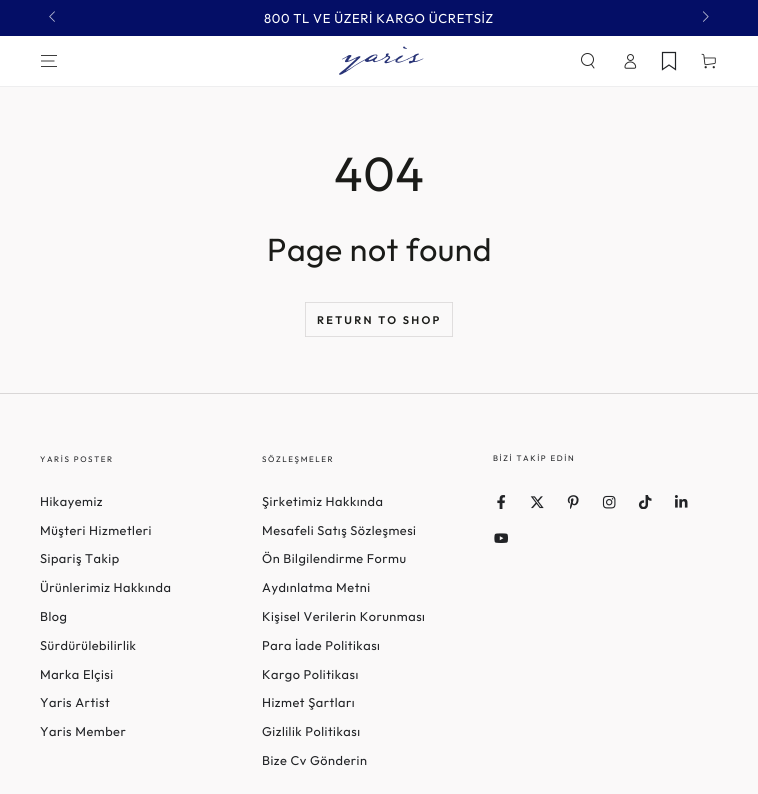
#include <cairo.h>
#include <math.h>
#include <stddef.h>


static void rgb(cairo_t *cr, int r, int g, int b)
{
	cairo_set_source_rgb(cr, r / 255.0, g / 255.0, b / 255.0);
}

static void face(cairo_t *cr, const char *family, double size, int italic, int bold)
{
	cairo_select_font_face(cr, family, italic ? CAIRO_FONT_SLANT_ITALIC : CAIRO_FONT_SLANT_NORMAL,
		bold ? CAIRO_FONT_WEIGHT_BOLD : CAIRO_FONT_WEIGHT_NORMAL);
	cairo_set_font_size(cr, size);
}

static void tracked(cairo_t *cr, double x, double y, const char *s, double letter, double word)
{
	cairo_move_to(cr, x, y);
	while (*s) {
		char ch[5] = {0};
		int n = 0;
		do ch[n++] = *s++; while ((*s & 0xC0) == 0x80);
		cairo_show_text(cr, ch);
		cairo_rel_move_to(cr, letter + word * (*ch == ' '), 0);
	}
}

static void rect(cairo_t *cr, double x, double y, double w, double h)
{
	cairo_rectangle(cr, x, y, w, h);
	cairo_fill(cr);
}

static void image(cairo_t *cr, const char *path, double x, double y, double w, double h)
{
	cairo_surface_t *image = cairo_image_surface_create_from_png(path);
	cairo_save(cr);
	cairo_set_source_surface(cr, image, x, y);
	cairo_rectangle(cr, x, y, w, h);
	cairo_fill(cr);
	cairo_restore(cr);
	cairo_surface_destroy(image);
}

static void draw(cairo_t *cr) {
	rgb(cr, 250, 249, 249);
	cairo_paint(cr);
	rgb(cr, 4, 14, 102);
	rect(cr, 0, 0, 758, 36);
	image(cr, "image0.png", 49, 11, 6, 11);
	image(cr, "image1.png", 703, 11, 6, 11);
	face(cr, "Outfit", 13, 0, 0);
	rgb(cr, 255, 255, 255);
	tracked(cr, 264, 23, "800 TL VE ÜZERİ KARGO ÜCRETSİZ", 0.6, 0);
	rgb(cr, 238, 238, 239);
	rect(cr, 0, 86, 758, 1);
	rgb(cr, 255, 255, 255);
	rect(cr, 0, 36, 758, 50);
	cairo_new_path(cr);
	cairo_move_to(cr, 41, 66.5);
	cairo_line_to(cr, 57, 66.5);
	cairo_move_to(cr, 41, 61);
	cairo_line_to(cr, 54.5, 61);
	cairo_move_to(cr, 41, 55.5);
	cairo_line_to(cr, 57, 55.5);
	rgb(cr, 40, 40, 40);
	cairo_set_line_width(cr, 0.9);
	cairo_stroke(cr);
	image(cr, "image2.png", 339, 46, 85, 29);
	cairo_arc(cr, 587.5, 59.5, 6, 0, 2 * M_PI);
	cairo_set_line_width(cr, 1);
	cairo_stroke(cr);
	cairo_new_path(cr);
	cairo_move_to(cr, 591.5, 64.5);
	cairo_line_to(cr, 594, 68);
	cairo_set_line_cap(cr, CAIRO_LINE_CAP_ROUND);
	cairo_stroke(cr);
	image(cr, "image3.png", 624, 54, 13, 15);
	cairo_new_path(cr);
	cairo_move_to(cr, 662.5, 52.5);
	cairo_line_to(cr, 675.5, 52.5);
	cairo_line_to(cr, 675.5, 69.5);
	cairo_line_to(cr, 669, 65);
	cairo_line_to(cr, 662.5, 69.5);
	cairo_close_path(cr);
	rgb(cr, 33, 35, 38);
	cairo_set_line_width(cr, 1.2);
	cairo_set_line_cap(cr, CAIRO_LINE_CAP_BUTT);
	cairo_stroke(cr);
	image(cr, "image4.png", 701, 53, 15, 16);
	face(cr, "Outfit", 48, 0, 0);
	rgb(cr, 26, 27, 24);
	tracked(cr, 334, 191, "404", 0.5, 0);
	face(cr, "Outfit", 32, 0, 0);
	tracked(cr, 267, 261, "Page not found", 0.5, 0);
	cairo_rectangle(cr, 305.4, 302.4, 147.2, 34.2);
	rgb(cr, 217, 215, 215);
	cairo_set_line_width(cr, 0.8);
	cairo_stroke(cr);
	face(cr, "Outfit SemiBold", 11, 0, 0);
	rgb(cr, 26, 27, 24);
	tracked(cr, 317, 324, "RETURN TO SHOP", 2.25, 0);
	rgb(cr, 217, 215, 215);
	rect(cr, 0, 393, 758, 1);
	face(cr, "Outfit", 8, 0, 0);
	rgb(cr, 33, 35, 38);
	tracked(cr, 40, 462, "YARİS POSTER", 1.6, 0);
	face(cr, "Outfit", 12.75, 0, 0);
	tracked(cr, 40, 506, "Hikayemiz", 0.5, 0);
	tracked(cr, 40, 535, "Müşteri Hizmetleri", 0.5, 0);
	tracked(cr, 40, 563, "Sipariş Takip", 0.5, 0);
	tracked(cr, 40, 592, "Ürünlerimiz Hakkında", 0.5, 0);
	tracked(cr, 40, 621, "Blog", 0.5, 0);
	tracked(cr, 40, 650, "Sürdürülebilirlik", 0.5, 0);
	tracked(cr, 40, 679, "Marka Elçisi", 0.5, 0);
	tracked(cr, 40, 707, "Yaris Artist", 0.5, 0);
	tracked(cr, 40, 736, "Yaris Member", 0.5, 0);
	face(cr, "Outfit", 8, 0, 0);
	tracked(cr, 262, 462, "SÖZLEŞMELER", 1.6, 0);
	face(cr, "Outfit", 12.75, 0, 0);
	tracked(cr, 262, 506, "Şirketimiz Hakkında", 0.5, 0);
	tracked(cr, 262, 535, "Mesafeli Satış Sözleşmesi", 0.5, 0);
	tracked(cr, 262, 563, "Ön Bilgilendirme Formu", 0.5, 0);
	tracked(cr, 262, 592, "Aydınlatma Metni", 0.5, 0);
	tracked(cr, 262, 621, "Kişisel Verilerin Korunması", 0.5, 0);
	tracked(cr, 262, 650, "Para İade Politikası", 0.5, 0);
	tracked(cr, 262, 679, "Kargo Politikası", 0.5, 0);
	tracked(cr, 262, 707, "Hizmet Şartları", 0.5, 0);
	tracked(cr, 262, 736, "Gizlilik Politikası", 0.5, 0);
	tracked(cr, 262, 765, "Bize Cv Gönderin", 0.5, 0);
	face(cr, "Outfit", 8, 0, 0);
	tracked(cr, 493, 461, "BİZİ TAKİP EDİN", 1.6, 0);
	image(cr, "image5.png", 497, 495, 9, 14);
	image(cr, "image6.png", 530, 496, 14, 13);
	image(cr, "image7.png", 567, 495, 12, 14);
	image(cr, "image8.png", 602, 495, 14, 14);
	image(cr, "image9.png", 638, 495, 14, 14);
	image(cr, "image10.png", 674, 495, 14, 13);
	image(cr, "image11.png", 494, 533, 14, 10);
}

int main(void) {
	cairo_surface_t *surface = cairo_image_surface_create(CAIRO_FORMAT_RGB24, 758, 794);
	cairo_t *cr = cairo_create(surface);
	cairo_font_options_t *options = cairo_font_options_create();
	cairo_font_options_set_hint_metrics(options, CAIRO_HINT_METRICS_OFF);
	cairo_font_options_set_hint_style(options, CAIRO_HINT_STYLE_NONE);
	cairo_set_font_options(cr, options);
	cairo_set_miter_limit(cr, 4);
	draw(cr);
	cairo_surface_write_to_png(surface, "render.png");
	cairo_font_options_destroy(options);
	cairo_destroy(cr);
	cairo_surface_destroy(surface);
	return 0;
}
